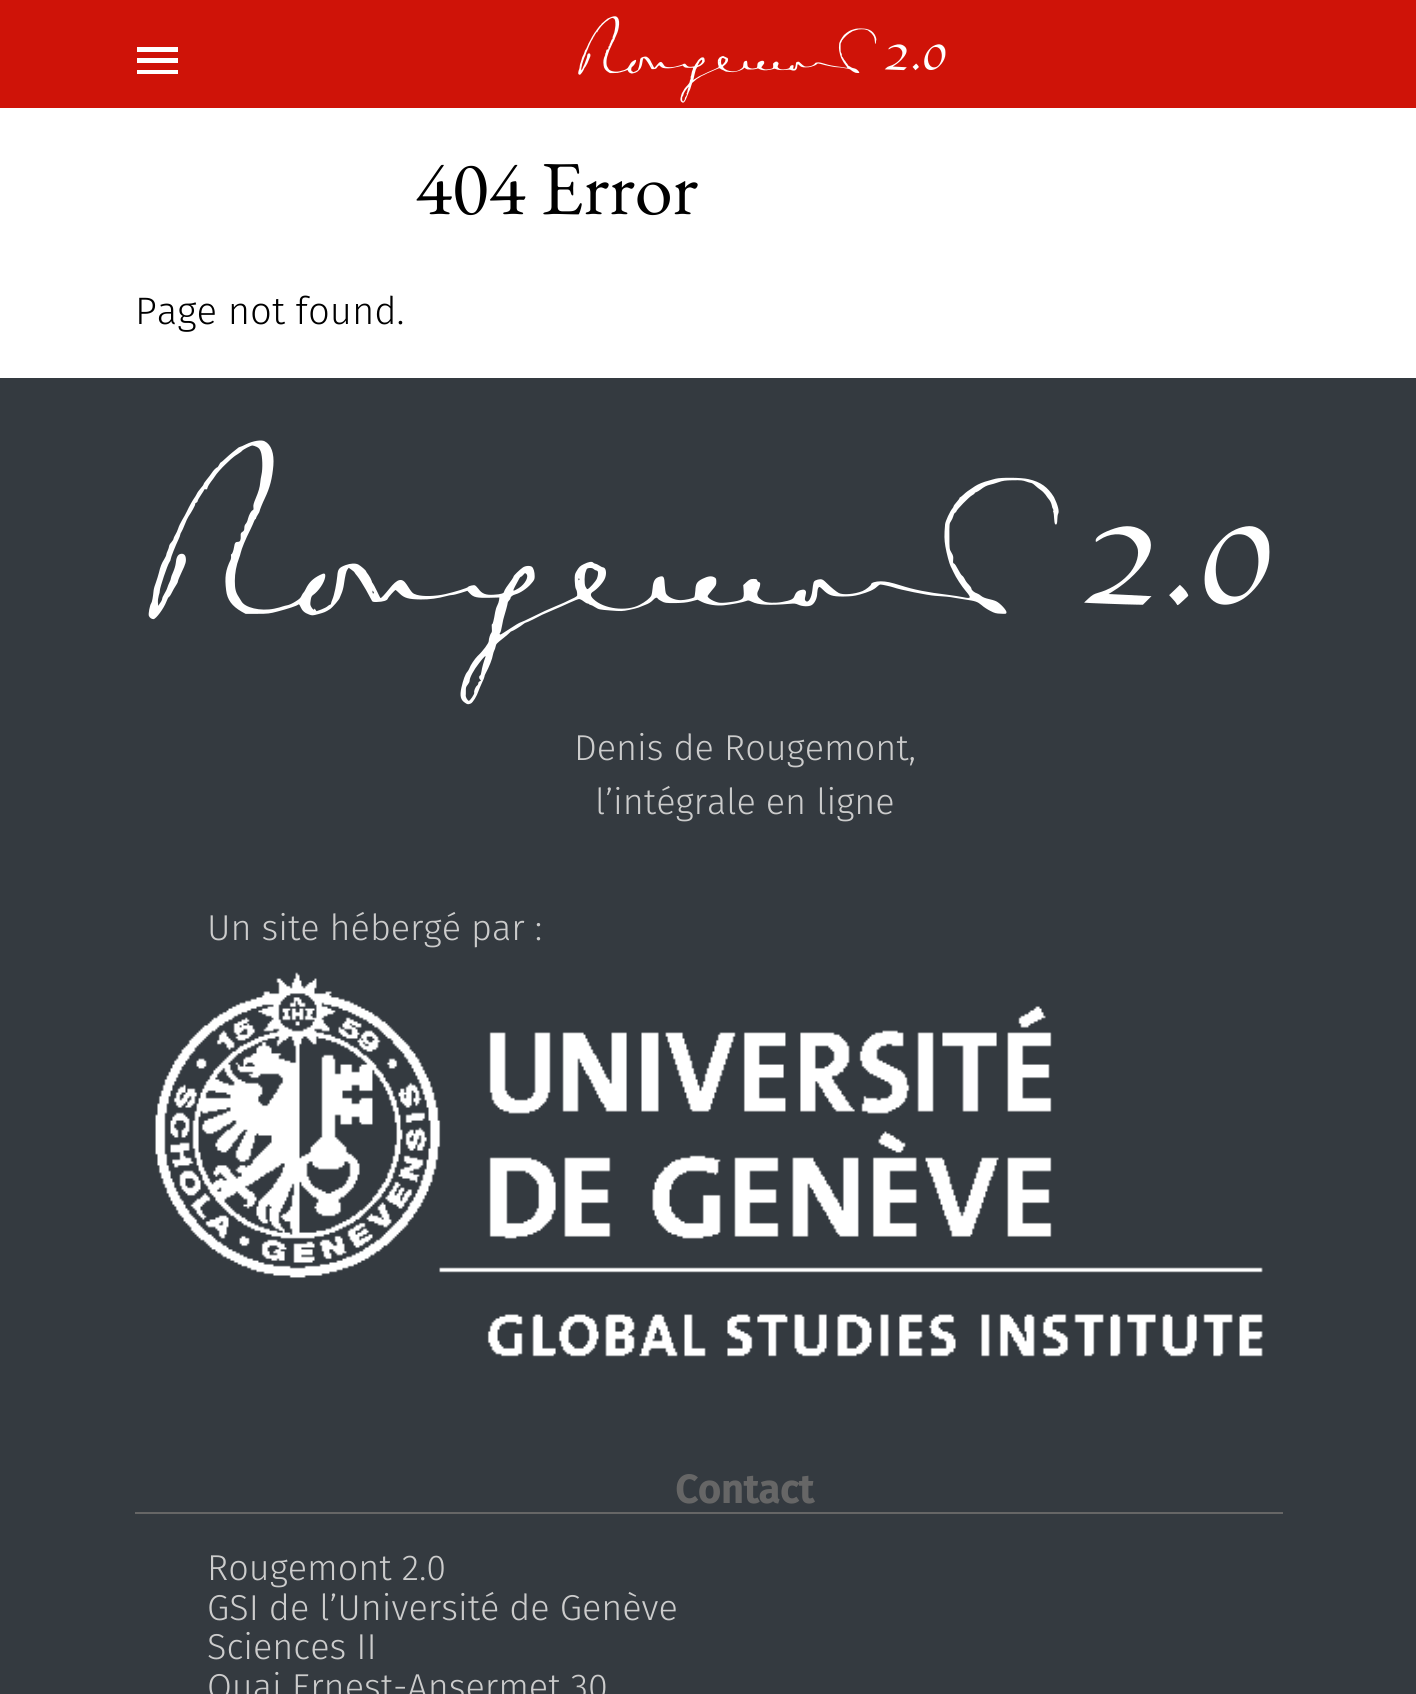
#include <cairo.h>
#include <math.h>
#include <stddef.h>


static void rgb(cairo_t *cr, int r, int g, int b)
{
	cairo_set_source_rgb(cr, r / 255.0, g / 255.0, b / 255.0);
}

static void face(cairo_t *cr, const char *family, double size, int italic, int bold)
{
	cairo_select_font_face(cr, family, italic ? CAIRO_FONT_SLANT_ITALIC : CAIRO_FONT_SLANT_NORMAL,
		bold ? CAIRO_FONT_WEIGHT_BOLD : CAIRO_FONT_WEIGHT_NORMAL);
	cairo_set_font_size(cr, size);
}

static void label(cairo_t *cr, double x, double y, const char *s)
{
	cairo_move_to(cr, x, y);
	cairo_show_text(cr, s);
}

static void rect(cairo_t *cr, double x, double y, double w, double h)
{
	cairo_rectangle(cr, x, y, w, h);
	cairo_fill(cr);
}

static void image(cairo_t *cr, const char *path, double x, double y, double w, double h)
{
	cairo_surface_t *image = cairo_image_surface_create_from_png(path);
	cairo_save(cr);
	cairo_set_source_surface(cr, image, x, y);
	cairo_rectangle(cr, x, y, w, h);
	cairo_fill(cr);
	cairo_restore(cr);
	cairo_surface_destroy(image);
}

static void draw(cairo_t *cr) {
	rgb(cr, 255, 255, 255);
	cairo_paint(cr);
	rgb(cr, 207, 19, 8);
	rect(cr, 0, 0, 1416, 108);
	rgb(cr, 255, 255, 255);
	cairo_new_path(cr);
	cairo_move_to(cr, 137, 74);
	cairo_line_to(cr, 178, 74);
	cairo_line_to(cr, 178, 70);
	cairo_line_to(cr, 137, 70);
	cairo_close_path(cr);
	cairo_move_to(cr, 137, 63);
	cairo_line_to(cr, 178, 63);
	cairo_line_to(cr, 178, 58);
	cairo_line_to(cr, 137, 58);
	cairo_close_path(cr);
	cairo_move_to(cr, 137, 47);
	cairo_line_to(cr, 137, 52);
	cairo_line_to(cr, 178, 52);
	cairo_line_to(cr, 178, 47);
	cairo_close_path(cr);
	cairo_fill(cr);
	image(cr, "image0.png", 578, 16, 368, 87);
	face(cr, "EB Garamond", 76.5, 0, 0);
	rgb(cr, 0, 0, 0);
	label(cr, 415, 214, "404 Error");
	face(cr, "Fira Sans Light", 38.25, 0, 0);
	label(cr, 135, 324, "Page not found.");
	rgb(cr, 52, 58, 64);
	rect(cr, 0, 378, 1416, 1316);
	image(cr, "image1.png", 148, 440, 1122, 265);
	face(cr, "Fira Sans Light", 36, 0, 0);
	rgb(cr, 204, 204, 204);
	label(cr, 574, 760, "Denis de Rougemont,");
	label(cr, 595, 814, "l’intégrale en ligne");
	label(cr, 207, 940, "Un site hébergé par :");
	image(cr, "image2.png", 155, 972, 1108, 385);
	rgb(cr, 102, 102, 102);
	rect(cr, 135, 1512, 1148, 2);
	face(cr, "Fira Sans", 39.5, 0, 1);
	label(cr, 675, 1503, "Contact");
	face(cr, "Fira Sans Light", 36, 0, 0);
	rgb(cr, 204, 204, 204);
	label(cr, 207, 1580, "Rougemont 2.0");
	label(cr, 207, 1620, "GSI de l’Université de Genève");
	label(cr, 207, 1659, "Sciences II");
	label(cr, 207, 1699, "Quai Ernest-Ansermet 30");
}

int main(void) {
	cairo_surface_t *surface = cairo_image_surface_create(CAIRO_FORMAT_RGB24, 1416, 1694);
	cairo_t *cr = cairo_create(surface);
	cairo_font_options_t *options = cairo_font_options_create();
	cairo_font_options_set_hint_metrics(options, CAIRO_HINT_METRICS_OFF);
	cairo_font_options_set_hint_style(options, CAIRO_HINT_STYLE_NONE);
	cairo_set_font_options(cr, options);
	cairo_set_miter_limit(cr, 4);
	draw(cr);
	cairo_surface_write_to_png(surface, "render.png");
	cairo_font_options_destroy(options);
	cairo_destroy(cr);
	cairo_surface_destroy(surface);
	return 0;
}
